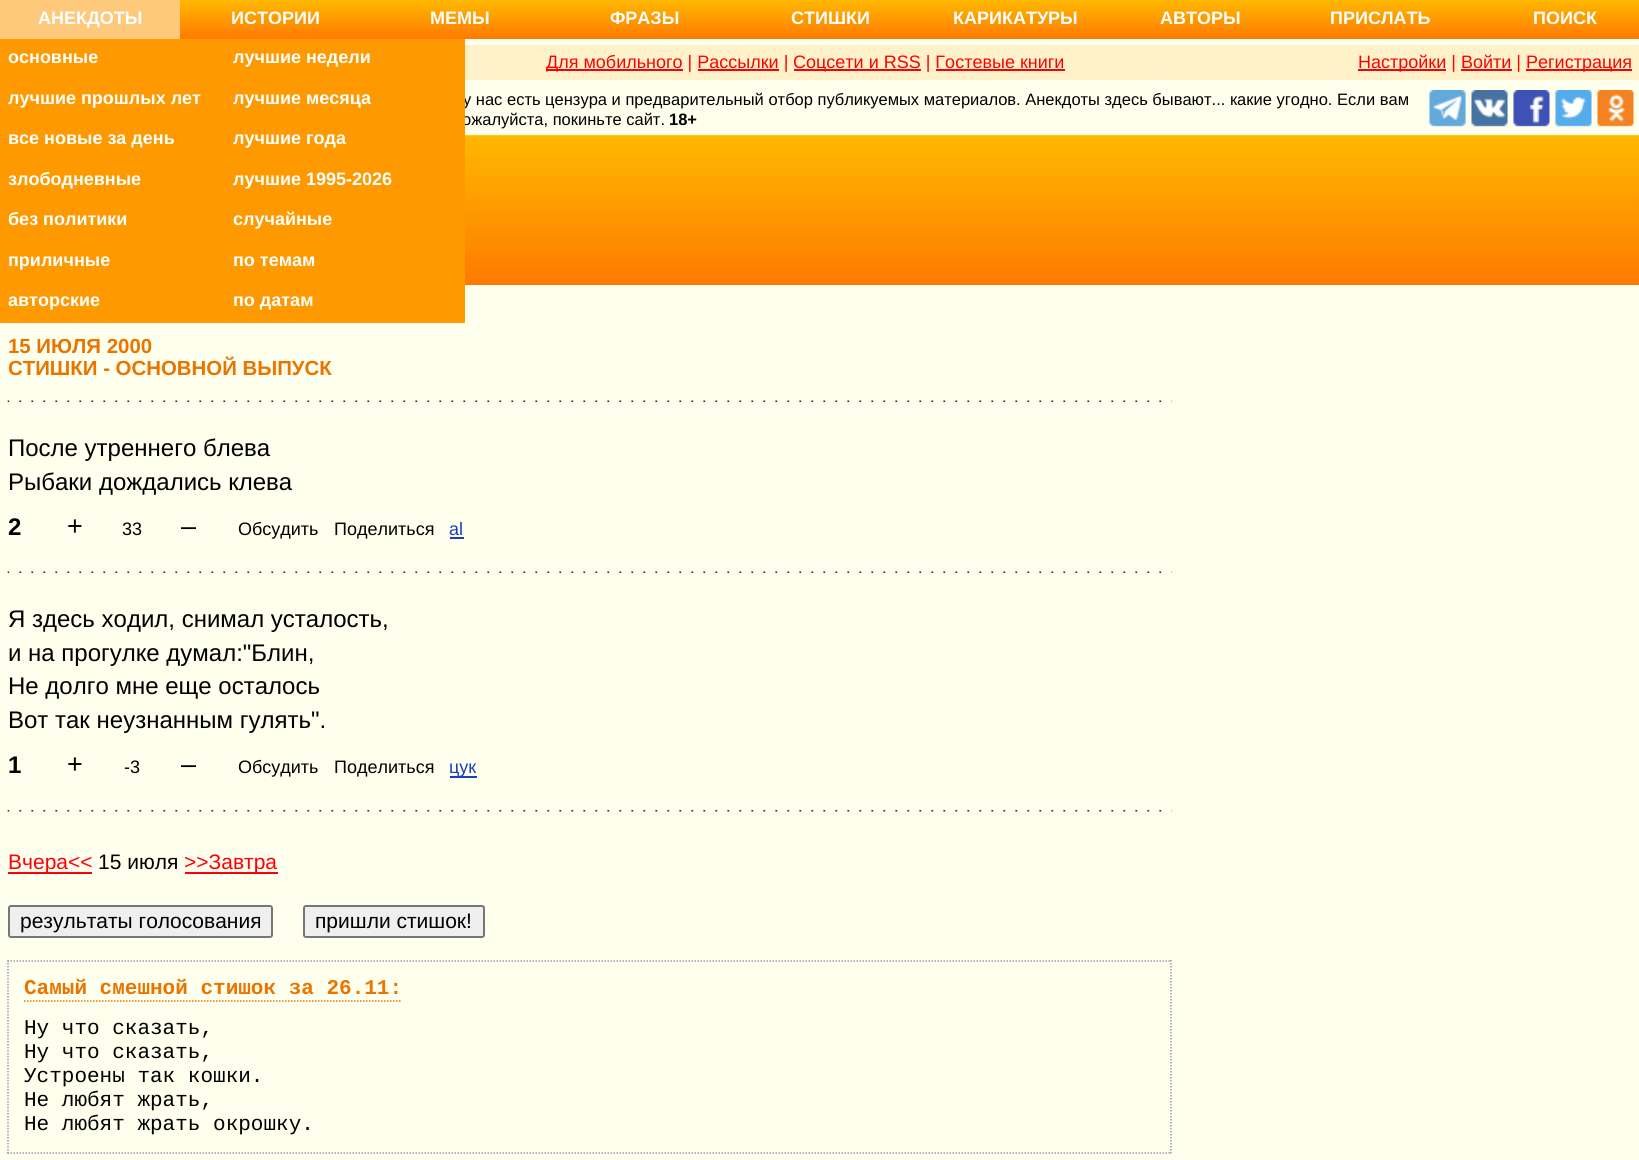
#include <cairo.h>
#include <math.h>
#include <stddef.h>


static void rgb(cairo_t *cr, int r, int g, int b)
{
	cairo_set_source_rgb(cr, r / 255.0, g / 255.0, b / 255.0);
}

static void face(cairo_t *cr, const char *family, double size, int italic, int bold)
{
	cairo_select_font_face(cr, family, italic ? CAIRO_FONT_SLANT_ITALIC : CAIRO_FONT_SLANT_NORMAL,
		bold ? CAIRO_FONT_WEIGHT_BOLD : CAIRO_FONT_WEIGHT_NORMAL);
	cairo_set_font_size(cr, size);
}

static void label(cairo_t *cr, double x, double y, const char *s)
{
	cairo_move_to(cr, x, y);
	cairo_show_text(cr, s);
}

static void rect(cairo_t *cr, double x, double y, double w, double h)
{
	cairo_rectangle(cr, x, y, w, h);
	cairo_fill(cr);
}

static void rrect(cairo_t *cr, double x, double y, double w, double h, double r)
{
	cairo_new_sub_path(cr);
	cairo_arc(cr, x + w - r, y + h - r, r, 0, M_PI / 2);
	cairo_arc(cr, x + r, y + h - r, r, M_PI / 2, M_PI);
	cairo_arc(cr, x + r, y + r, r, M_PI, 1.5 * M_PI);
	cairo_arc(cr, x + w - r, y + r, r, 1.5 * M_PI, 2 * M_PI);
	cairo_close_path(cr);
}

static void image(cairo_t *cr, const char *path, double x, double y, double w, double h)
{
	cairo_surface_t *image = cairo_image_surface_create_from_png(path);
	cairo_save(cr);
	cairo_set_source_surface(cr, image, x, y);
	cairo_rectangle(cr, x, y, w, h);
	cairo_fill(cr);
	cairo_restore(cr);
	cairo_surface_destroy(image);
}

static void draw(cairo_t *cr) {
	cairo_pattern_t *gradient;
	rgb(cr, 255, 255, 238);
	cairo_paint(cr);
	gradient = cairo_pattern_create_linear(820, 0, 820, 39);
	cairo_pattern_add_color_stop_rgba(gradient, 0, 1, 0.722, 0, 1);
	cairo_pattern_add_color_stop_rgba(gradient, 1, 1, 0.478, 0, 1);
	cairo_set_source(cr, gradient);
	cairo_pattern_destroy(gradient);
	rect(cr, 180, 0, 1459, 39);
	rgb(cr, 255, 201, 124);
	rect(cr, 0, 0, 180, 39);
	face(cr, "Liberation Sans", 18, 0, 1);
	rgb(cr, 255, 255, 255);
	label(cr, 38, 24, "АНЕКДОТЫ");
	rgb(cr, 255, 153, 0);
	rect(cr, 0, 39, 225, 284);
	rgb(cr, 255, 255, 255);
	label(cr, 8, 63, "основные");
	label(cr, 8, 104, "лучшие прошлых лет");
	label(cr, 8, 144, "все новые за день");
	label(cr, 8, 185, "злободневные");
	label(cr, 8, 225, "без политики");
	label(cr, 8, 266, "приличные");
	label(cr, 8, 306, "авторские");
	face(cr, "Liberation Sans", 16.5, 0, 0);
	rgb(cr, 0, 0, 0);
	label(cr, 463, 105, "у нас есть цензура и предварительный отбор публикуемых материалов. Анекдоты здесь бывают... какие угодно. Если вам");
	label(cr, 462, 125, "ожалуйста, покиньте сайт.");
	rgb(cr, 255, 153, 0);
	rect(cr, 225, 39, 240, 284);
	face(cr, "Liberation Sans", 18, 0, 1);
	rgb(cr, 255, 255, 255);
	label(cr, 233, 63, "лучшие недели");
	label(cr, 233, 104, "лучшие месяца");
	label(cr, 233, 144, "лучшие года");
	label(cr, 233, 185, "лучшие 1995-2026");
	label(cr, 233, 225, "случайные");
	label(cr, 233, 266, "по темам");
	label(cr, 233, 306, "по датам");
	label(cr, 231, 24, "ИСТОРИИ");
	label(cr, 430, 24, "МЕМЫ");
	label(cr, 610, 24, "ФРАЗЫ");
	label(cr, 791, 24, "СТИШКИ");
	label(cr, 953, 24, "КАРИКАТУРЫ");
	label(cr, 1160, 24, "АВТОРЫ");
	label(cr, 1330, 24, "ПРИСЛАТЬ");
	label(cr, 1533, 24, "ПОИСК");
	rgb(cr, 255, 242, 202);
	rect(cr, 465, 45, 1174, 35);
	rgb(cr, 255, 0, 0);
	rect(cr, 546, 69, 137, 2);
	face(cr, "Liberation Sans", 18, 0, 0);
	label(cr, 546, 68, "Для мобильного | Рассылки |");
	rect(cr, 794, 69, 127, 2);
	label(cr, 793, 68, "Соцсети и RSS | Гостевые книги");
	rect(cr, 1358, 69, 88, 2);
	label(cr, 1358, 68, "Настройки | Войти |");
	rect(cr, 1526, 69, 106, 2);
	label(cr, 1526, 68, "Регистрация");
	rect(cr, 1461, 69, 51, 2);
	rect(cr, 698, 69, 81, 2);
	rect(cr, 936, 69, 129, 2);
	image(cr, "image0.png", 465, 134, 1174, 151);
	face(cr, "Liberation Sans", 16.5, 0, 1);
	rgb(cr, 0, 0, 0);
	label(cr, 669, 125, "18+");
	image(cr, "image1.png", 1429, 90, 37, 37);
	image(cr, "image2.png", 1471, 90, 37, 37);
	image(cr, "image3.png", 1513, 90, 37, 37);
	image(cr, "image4.png", 1555, 90, 37, 37);
	image(cr, "image5.png", 1597, 90, 37, 37);
	image(cr, "image6.png", 7, 400, 1165, 2);
	face(cr, "Liberation Sans", 20.4, 0, 1);
	rgb(cr, 235, 116, 0);
	label(cr, 8, 353, "15 ИЮЛЯ 2000");
	label(cr, 8, 375, "СТИШКИ - ОСНОВНОЙ ВЫПУСК");
	image(cr, "image6.png", 7, 571, 1165, 2);
	face(cr, "Liberation Sans", 24, 0, 0);
	rgb(cr, 0, 0, 0);
	label(cr, 8, 456, "После утреннего блева");
	label(cr, 8, 490, "Рыбаки дождались клева");
	face(cr, "Liberation Sans", 24, 0, 1);
	label(cr, 8, 535, "2");
	face(cr, "Liberation Sans", 27, 0, 0);
	label(cr, 67, 535, "+");
	face(cr, "Liberation Sans", 18, 0, 0);
	label(cr, 122, 535, "33");
	face(cr, "Liberation Sans", 27, 0, 0);
	label(cr, 181, 535, "–");
	face(cr, "Liberation Sans", 18, 0, 0);
	label(cr, 238, 535, "Обсудить");
	label(cr, 334, 535, "Поделиться");
	rgb(cr, 26, 61, 193);
	label(cr, 449, 535, "al");
	rect(cr, 450, 537, 14, 2);
	image(cr, "image7.png", 7, 810, 1165, 2);
	face(cr, "Liberation Sans", 24, 0, 0);
	rgb(cr, 0, 0, 0);
	label(cr, 8, 627, "Я здесь ходил, снимал усталость,");
	label(cr, 8, 661, "и на прогулке думал:\"Блин,");
	label(cr, 8, 694, "Не долго мне еще осталось");
	label(cr, 8, 728, "Вот так неузнанным гулять\".");
	face(cr, "Liberation Sans", 24, 0, 1);
	label(cr, 8, 773, "1");
	face(cr, "Liberation Sans", 27, 0, 0);
	label(cr, 67, 773, "+");
	face(cr, "Liberation Sans", 18, 0, 0);
	label(cr, 124, 773, "-3");
	face(cr, "Liberation Sans", 27, 0, 0);
	label(cr, 181, 773, "–");
	face(cr, "Liberation Sans", 18, 0, 0);
	label(cr, 238, 773, "Обсудить");
	label(cr, 334, 773, "Поделиться");
	rgb(cr, 26, 61, 193);
	rect(cr, 450, 776, 27, 2);
	label(cr, 449, 773, "цук");
	rgb(cr, 255, 0, 10);
	rect(cr, 8, 872, 84, 2);
	face(cr, "Liberation Sans", 21, 0, 0);
	label(cr, 8, 869, "Вчера<<");
	rgb(cr, 0, 0, 0);
	label(cr, 98, 869, "15 июля");
	rgb(cr, 255, 0, 10);
	rect(cr, 185, 872, 93, 2);
	label(cr, 184, 869, ">>Завтра");
	rgb(cr, 239, 239, 239);
	rrect(cr, 9, 906, 263, 31, 2);
	cairo_fill_preserve(cr);
	rgb(cr, 118, 118, 118);
	cairo_stroke(cr);
	rgb(cr, 0, 0, 0);
	label(cr, 20, 928, "результаты голосования");
	rgb(cr, 239, 239, 239);
	rrect(cr, 304, 906, 180, 31, 2);
	cairo_fill_preserve(cr);
	rgb(cr, 118, 118, 118);
	cairo_stroke(cr);
	rgb(cr, 0, 0, 0);
	label(cr, 315, 928, "пришли стишок!");
	cairo_new_path(cr);
	cairo_move_to(cr, 7.5, 961);
	cairo_line_to(cr, 1171.5, 961);
	rgb(cr, 153, 153, 187);
	cairo_set_line_width(cr, 1.5);
	cairo_set_dash(cr, (double[]){1.5, 1.5}, 2, 0);
	cairo_stroke(cr);
	cairo_new_path(cr);
	cairo_move_to(cr, 1171, 960);
	cairo_line_to(cr, 1171, 1153.5);
	cairo_stroke(cr);
	cairo_new_path(cr);
	cairo_move_to(cr, 7.5, 1153);
	cairo_line_to(cr, 1171.5, 1153);
	cairo_stroke(cr);
	cairo_new_path(cr);
	cairo_move_to(cr, 8, 960);
	cairo_line_to(cr, 8, 1153.5);
	cairo_stroke(cr);
	cairo_new_path(cr);
	cairo_move_to(cr, 24, 1001);
	cairo_line_to(cr, 402, 1001);
	rgb(cr, 235, 116, 0);
	cairo_stroke(cr);
	face(cr, "Liberation Mono", 21, 0, 1);
	label(cr, 24, 994, "Самый смешной стишок за 26.11:");
	face(cr, "Liberation Mono", 21, 0, 0);
	rgb(cr, 0, 0, 0);
	label(cr, 24, 1034, "Ну что сказать,");
	label(cr, 24, 1058, "Ну что сказать,");
	label(cr, 24, 1082, "Устроены так кошки.");
	label(cr, 24, 1106, "Не любят жрать,");
	label(cr, 24, 1130, "Не любят жрать окрошку.");
}

int main(void) {
	cairo_surface_t *surface = cairo_image_surface_create(CAIRO_FORMAT_RGB24, 1639, 1160);
	cairo_t *cr = cairo_create(surface);
	cairo_font_options_t *options = cairo_font_options_create();
	cairo_font_options_set_hint_metrics(options, CAIRO_HINT_METRICS_OFF);
	cairo_font_options_set_hint_style(options, CAIRO_HINT_STYLE_NONE);
	cairo_set_font_options(cr, options);
	cairo_set_miter_limit(cr, 4);
	draw(cr);
	cairo_surface_write_to_png(surface, "render.png");
	cairo_font_options_destroy(options);
	cairo_destroy(cr);
	cairo_surface_destroy(surface);
	return 0;
}
